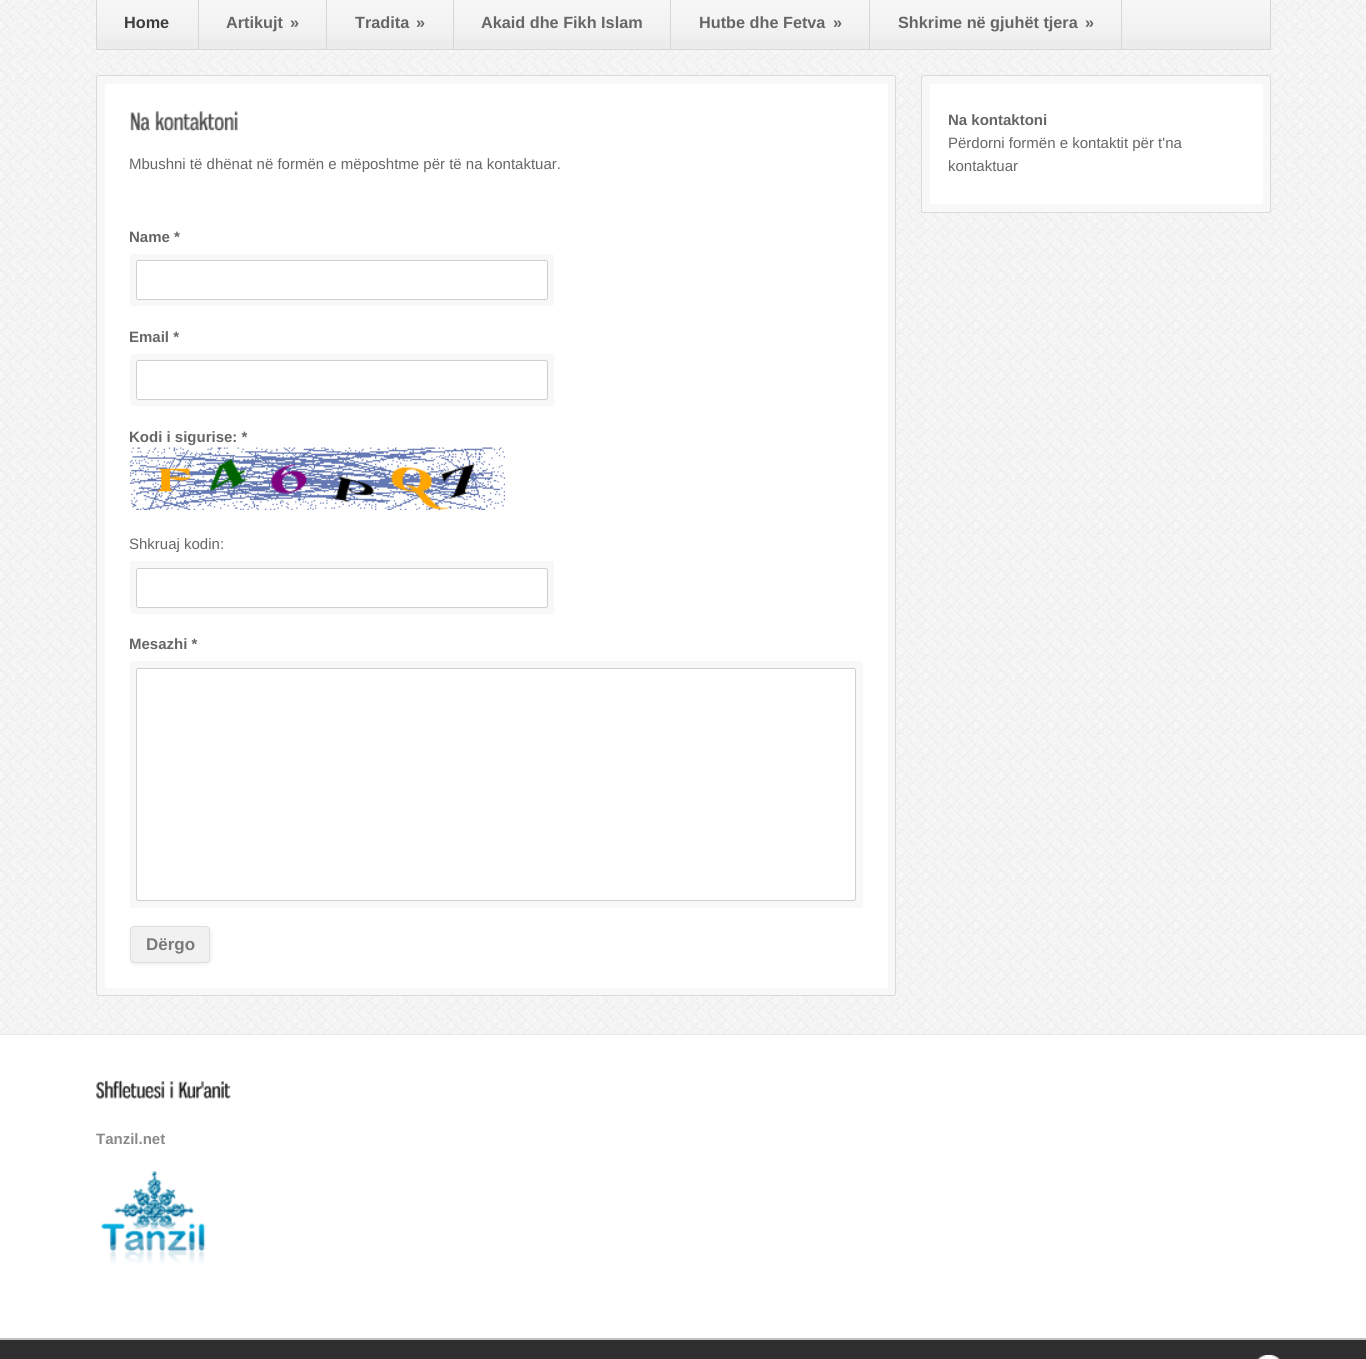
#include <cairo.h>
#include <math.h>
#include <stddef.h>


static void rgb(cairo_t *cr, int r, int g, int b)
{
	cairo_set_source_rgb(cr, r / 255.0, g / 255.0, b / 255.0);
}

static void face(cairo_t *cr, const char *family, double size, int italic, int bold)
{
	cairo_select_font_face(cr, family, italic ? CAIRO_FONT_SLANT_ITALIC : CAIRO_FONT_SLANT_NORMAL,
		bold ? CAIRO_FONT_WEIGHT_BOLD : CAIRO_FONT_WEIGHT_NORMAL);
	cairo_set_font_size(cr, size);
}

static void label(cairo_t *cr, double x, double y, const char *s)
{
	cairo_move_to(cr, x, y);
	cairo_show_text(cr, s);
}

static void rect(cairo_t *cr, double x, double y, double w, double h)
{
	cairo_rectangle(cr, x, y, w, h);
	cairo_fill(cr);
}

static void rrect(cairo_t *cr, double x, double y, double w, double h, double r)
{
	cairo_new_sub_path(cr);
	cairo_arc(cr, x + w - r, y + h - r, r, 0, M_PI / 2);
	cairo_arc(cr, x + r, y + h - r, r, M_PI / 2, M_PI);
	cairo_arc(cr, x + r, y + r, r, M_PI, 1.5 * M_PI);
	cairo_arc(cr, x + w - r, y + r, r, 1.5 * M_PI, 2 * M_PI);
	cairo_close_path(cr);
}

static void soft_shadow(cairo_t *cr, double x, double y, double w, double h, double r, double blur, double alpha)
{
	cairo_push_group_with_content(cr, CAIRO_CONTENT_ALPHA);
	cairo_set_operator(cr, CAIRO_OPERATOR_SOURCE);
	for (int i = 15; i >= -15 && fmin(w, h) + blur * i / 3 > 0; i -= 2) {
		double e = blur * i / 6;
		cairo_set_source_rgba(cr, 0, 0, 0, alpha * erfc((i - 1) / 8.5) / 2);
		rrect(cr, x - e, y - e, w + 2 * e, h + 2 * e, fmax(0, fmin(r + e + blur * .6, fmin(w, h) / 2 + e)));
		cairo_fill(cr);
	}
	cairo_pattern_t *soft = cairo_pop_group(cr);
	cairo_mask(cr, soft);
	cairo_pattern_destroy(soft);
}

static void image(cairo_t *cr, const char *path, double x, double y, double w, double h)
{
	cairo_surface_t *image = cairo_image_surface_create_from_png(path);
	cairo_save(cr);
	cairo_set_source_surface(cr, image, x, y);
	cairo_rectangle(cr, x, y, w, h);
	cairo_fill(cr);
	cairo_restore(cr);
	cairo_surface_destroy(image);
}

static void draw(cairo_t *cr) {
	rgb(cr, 255, 255, 255);
	cairo_paint(cr);
	image(cr, "image0.png", 0, 0, 1366, 1034);
	rgb(cr, 245, 245, 245);
	soft_shadow(cr, 98, -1, 1172, 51, 0, 3, 1);
	rgb(cr, 236, 236, 236);
	rect(cr, 97, 0, 1173, 49);
	image(cr, "image1.png", 97, 0, 1173, 39);
	cairo_rectangle(cr, 96.5, -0.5, 1174, 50);
	rgb(cr, 215, 215, 215);
	cairo_set_line_width(cr, 1);
	cairo_stroke(cr);
	rect(cr, 198, 0, 1, 49);
	face(cr, "Liberation Sans", 16.25, 0, 1);
	rgb(cr, 61, 61, 61);
	label(cr, 124, 28, "Home");
	rgb(cr, 215, 215, 215);
	rect(cr, 326, 0, 1, 49);
	rgb(cr, 102, 102, 102);
	label(cr, 226, 28, "Artikujt");
	label(cr, 290, 28, "»");
	rgb(cr, 215, 215, 215);
	rect(cr, 453, 0, 1, 49);
	rgb(cr, 102, 102, 102);
	label(cr, 355, 28, "Tradita");
	label(cr, 416, 28, "»");
	rgb(cr, 215, 215, 215);
	rect(cr, 670, 0, 1, 49);
	rgb(cr, 102, 102, 102);
	label(cr, 481, 28, "Akaid dhe Fikh Islam");
	rgb(cr, 215, 215, 215);
	rect(cr, 869, 0, 1, 49);
	rgb(cr, 102, 102, 102);
	label(cr, 699, 28, "Hutbe dhe Fetva");
	label(cr, 833, 28, "»");
	rgb(cr, 215, 215, 215);
	rect(cr, 1121, 0, 1, 49);
	rgb(cr, 102, 102, 102);
	label(cr, 898, 28, "Shkrime në gjuhët tjera");
	label(cr, 1085, 28, "»");
	rgb(cr, 248, 248, 248);
	rrect(cr, 921.5, 75.5, 349, 137, 2);
	cairo_fill_preserve(cr);
	rgb(cr, 218, 218, 218);
	cairo_stroke(cr);
	rgb(cr, 255, 255, 255);
	rect(cr, 930, 84, 333, 120);
	face(cr, "Liberation Sans", 15, 0, 1);
	rgb(cr, 102, 102, 102);
	label(cr, 948, 125, "Na kontaktoni");
	face(cr, "Liberation Sans", 15, 0, 0);
	label(cr, 948, 148, "Përdorni formën e kontaktit për t'na");
	label(cr, 948, 171, "kontaktuar");
	rgb(cr, 248, 248, 248);
	rrect(cr, 96.5, 75.5, 799, 920, 2);
	cairo_fill_preserve(cr);
	rgb(cr, 218, 218, 218);
	cairo_stroke(cr);
	rgb(cr, 255, 255, 255);
	rect(cr, 105, 84, 783, 904);
	image(cr, "image2.png", 130, 112, 21, 20);
	image(cr, "image3.png", 155, 111, 83, 21);
	rgb(cr, 102, 102, 102);
	label(cr, 129, 169, "Mbushni të dhënat në formën e mëposhtme për të na kontaktuar.");
	face(cr, "Liberation Sans", 15, 0, 1);
	label(cr, 129, 242, "Name *");
	rgb(cr, 248, 248, 248);
	cairo_new_path(cr);
	cairo_move_to(cr, 132, 266);
	cairo_curve_to(cr, 131, 266, 130, 267, 130, 268);
	cairo_line_to(cr, 130, 304);
	cairo_curve_to(cr, 130, 305, 131, 306, 132, 306);
	cairo_line_to(cr, 538, 306);
	cairo_curve_to(cr, 540, 306, 541, 305, 541, 304);
	cairo_line_to(cr, 541, 300);
	cairo_line_to(cr, 139, 300);
	cairo_curve_to(cr, 137, 300, 136, 299, 136, 298);
	cairo_line_to(cr, 136, 266);
	cairo_close_path(cr);
	cairo_fill(cr);
	cairo_new_path(cr);
	cairo_move_to(cr, 146, 254);
	cairo_curve_to(cr, 142, 254, 143, 258, 143, 260);
	cairo_line_to(cr, 545, 260);
	cairo_curve_to(cr, 546, 260, 548, 261, 548, 262);
	cairo_line_to(cr, 548, 294);
	cairo_line_to(cr, 552, 294);
	cairo_curve_to(cr, 553, 294, 554, 293, 554, 292);
	cairo_line_to(cr, 554, 256);
	cairo_curve_to(cr, 554, 255, 553, 254, 552, 254);
	cairo_close_path(cr);
	cairo_fill(cr);
	cairo_new_path(cr);
	cairo_move_to(cr, 136, 267);
	cairo_line_to(cr, 136, 304);
	cairo_curve_to(cr, 136, 305, 137, 306, 138, 306);
	cairo_line_to(cr, 546, 306);
	cairo_curve_to(cr, 547, 306, 548, 305, 548, 304);
	cairo_line_to(cr, 548, 268);
	cairo_line_to(cr, 548, 267);
	cairo_line_to(cr, 548, 298);
	cairo_curve_to(cr, 548, 299, 546, 300, 545, 300);
	cairo_line_to(cr, 139, 300);
	cairo_curve_to(cr, 137, 300, 136, 299, 136, 298);
	cairo_close_path(cr);
	cairo_fill(cr);
	cairo_new_path(cr);
	cairo_move_to(cr, 545, 300);
	cairo_curve_to(cr, 554, 300, 554, 301, 554, 292);
	cairo_line_to(cr, 554, 268);
	cairo_curve_to(cr, 554, 259, 554, 260, 545, 260);
	cairo_curve_to(cr, 546, 260, 548, 261, 548, 262);
	cairo_line_to(cr, 548, 298);
	cairo_curve_to(cr, 548, 299, 546, 300, 545, 300);
	cairo_close_path(cr);
	cairo_fill(cr);
	cairo_new_path(cr);
	cairo_move_to(cr, 143, 300);
	cairo_line_to(cr, 143, 304);
	cairo_curve_to(cr, 143, 305, 144, 306, 146, 306);
	cairo_line_to(cr, 552, 306);
	cairo_curve_to(cr, 553, 306, 554, 305, 554, 304);
	cairo_line_to(cr, 554, 268);
	cairo_curve_to(cr, 554, 267, 553, 266, 552, 266);
	cairo_line_to(cr, 548, 266);
	cairo_line_to(cr, 548, 298);
	cairo_curve_to(cr, 548, 299, 546, 300, 545, 300);
	cairo_close_path(cr);
	cairo_fill(cr);
	cairo_new_path(cr);
	cairo_move_to(cr, 132, 254);
	cairo_curve_to(cr, 131, 254, 130, 255, 130, 256);
	cairo_line_to(cr, 130, 292);
	cairo_curve_to(cr, 130, 293, 131, 294, 132, 294);
	cairo_line_to(cr, 136, 294);
	cairo_line_to(cr, 136, 262);
	cairo_curve_to(cr, 136, 261, 137, 260, 139, 260);
	cairo_line_to(cr, 541, 260);
	cairo_curve_to(cr, 541, 258, 542, 254, 538, 254);
	cairo_close_path(cr);
	cairo_fill(cr);
	rgb(cr, 255, 255, 255);
	rrect(cr, 136.5, 260.5, 411, 39, 2);
	cairo_fill_preserve(cr);
	rgb(cr, 207, 207, 207);
	cairo_stroke(cr);
	rgb(cr, 102, 102, 102);
	label(cr, 129, 342, "Email *");
	rgb(cr, 248, 248, 248);
	cairo_new_path(cr);
	cairo_move_to(cr, 132, 366);
	cairo_curve_to(cr, 131, 366, 130, 367, 130, 368);
	cairo_line_to(cr, 130, 404);
	cairo_curve_to(cr, 130, 405, 131, 406, 132, 406);
	cairo_line_to(cr, 538, 406);
	cairo_curve_to(cr, 540, 406, 541, 405, 541, 404);
	cairo_line_to(cr, 541, 400);
	cairo_line_to(cr, 139, 400);
	cairo_curve_to(cr, 137, 400, 136, 399, 136, 398);
	cairo_line_to(cr, 136, 366);
	cairo_close_path(cr);
	cairo_fill(cr);
	cairo_new_path(cr);
	cairo_move_to(cr, 146, 354);
	cairo_curve_to(cr, 142, 354, 143, 358, 143, 360);
	cairo_line_to(cr, 545, 360);
	cairo_curve_to(cr, 546, 360, 548, 361, 548, 362);
	cairo_line_to(cr, 548, 394);
	cairo_line_to(cr, 552, 394);
	cairo_curve_to(cr, 553, 394, 554, 393, 554, 392);
	cairo_line_to(cr, 554, 356);
	cairo_curve_to(cr, 554, 355, 553, 354, 552, 354);
	cairo_close_path(cr);
	cairo_fill(cr);
	cairo_new_path(cr);
	cairo_move_to(cr, 136, 367);
	cairo_line_to(cr, 136, 404);
	cairo_curve_to(cr, 136, 405, 137, 406, 138, 406);
	cairo_line_to(cr, 546, 406);
	cairo_curve_to(cr, 547, 406, 548, 405, 548, 404);
	cairo_line_to(cr, 548, 368);
	cairo_line_to(cr, 548, 367);
	cairo_line_to(cr, 548, 398);
	cairo_curve_to(cr, 548, 399, 546, 400, 545, 400);
	cairo_line_to(cr, 139, 400);
	cairo_curve_to(cr, 137, 400, 136, 399, 136, 398);
	cairo_close_path(cr);
	cairo_fill(cr);
	cairo_new_path(cr);
	cairo_move_to(cr, 545, 400);
	cairo_curve_to(cr, 554, 400, 554, 401, 554, 392);
	cairo_line_to(cr, 554, 368);
	cairo_curve_to(cr, 554, 359, 554, 360, 545, 360);
	cairo_curve_to(cr, 546, 360, 548, 361, 548, 362);
	cairo_line_to(cr, 548, 398);
	cairo_curve_to(cr, 548, 399, 546, 400, 545, 400);
	cairo_close_path(cr);
	cairo_fill(cr);
	cairo_new_path(cr);
	cairo_move_to(cr, 143, 400);
	cairo_line_to(cr, 143, 404);
	cairo_curve_to(cr, 143, 405, 144, 406, 146, 406);
	cairo_line_to(cr, 552, 406);
	cairo_curve_to(cr, 553, 406, 554, 405, 554, 404);
	cairo_line_to(cr, 554, 368);
	cairo_curve_to(cr, 554, 367, 553, 366, 552, 366);
	cairo_line_to(cr, 548, 366);
	cairo_line_to(cr, 548, 398);
	cairo_curve_to(cr, 548, 399, 546, 400, 545, 400);
	cairo_close_path(cr);
	cairo_fill(cr);
	cairo_new_path(cr);
	cairo_move_to(cr, 132, 354);
	cairo_curve_to(cr, 131, 354, 130, 355, 130, 356);
	cairo_line_to(cr, 130, 392);
	cairo_curve_to(cr, 130, 393, 131, 394, 132, 394);
	cairo_line_to(cr, 136, 394);
	cairo_line_to(cr, 136, 362);
	cairo_curve_to(cr, 136, 361, 137, 360, 139, 360);
	cairo_line_to(cr, 541, 360);
	cairo_curve_to(cr, 541, 358, 542, 354, 538, 354);
	cairo_close_path(cr);
	cairo_fill(cr);
	rgb(cr, 255, 255, 255);
	rrect(cr, 136.5, 360.5, 411, 39, 2);
	cairo_fill_preserve(cr);
	rgb(cr, 207, 207, 207);
	cairo_stroke(cr);
	rgb(cr, 102, 102, 102);
	label(cr, 129, 442, "Kodi i sigurise: *");
	image(cr, "image4.png", 130, 447, 375, 63);
	face(cr, "Liberation Sans", 15, 0, 0);
	label(cr, 129, 549, "Shkruaj kodin:");
	rgb(cr, 248, 248, 248);
	cairo_new_path(cr);
	cairo_move_to(cr, 132, 574);
	cairo_curve_to(cr, 131, 574, 130, 575, 130, 576);
	cairo_line_to(cr, 130, 612);
	cairo_curve_to(cr, 130, 613, 131, 614, 132, 614);
	cairo_line_to(cr, 538, 614);
	cairo_curve_to(cr, 540, 614, 541, 613, 541, 612);
	cairo_line_to(cr, 541, 608);
	cairo_line_to(cr, 139, 608);
	cairo_curve_to(cr, 137, 608, 136, 606, 136, 605);
	cairo_line_to(cr, 136, 574);
	cairo_close_path(cr);
	cairo_fill(cr);
	cairo_new_path(cr);
	cairo_move_to(cr, 146, 561);
	cairo_curve_to(cr, 142, 561, 143, 565, 143, 568);
	cairo_line_to(cr, 545, 568);
	cairo_curve_to(cr, 546, 568, 548, 569, 548, 570);
	cairo_line_to(cr, 548, 601);
	cairo_line_to(cr, 552, 601);
	cairo_curve_to(cr, 553, 601, 554, 600, 554, 598);
	cairo_line_to(cr, 554, 564);
	cairo_curve_to(cr, 554, 562, 553, 561, 552, 561);
	cairo_close_path(cr);
	cairo_fill(cr);
	cairo_new_path(cr);
	cairo_move_to(cr, 136, 575);
	cairo_line_to(cr, 136, 612);
	cairo_curve_to(cr, 136, 613, 137, 614, 138, 614);
	cairo_line_to(cr, 546, 614);
	cairo_curve_to(cr, 547, 614, 548, 613, 548, 612);
	cairo_line_to(cr, 548, 576);
	cairo_line_to(cr, 548, 575);
	cairo_line_to(cr, 548, 605);
	cairo_curve_to(cr, 548, 606, 546, 608, 545, 608);
	cairo_line_to(cr, 139, 608);
	cairo_curve_to(cr, 137, 608, 136, 606, 136, 605);
	cairo_close_path(cr);
	cairo_fill(cr);
	cairo_new_path(cr);
	cairo_move_to(cr, 144, 608);
	cairo_line_to(cr, 146, 608);
	cairo_line_to(cr, 552, 608);
	cairo_curve_to(cr, 553, 608, 554, 607, 554, 606);
	cairo_line_to(cr, 554, 570);
	cairo_curve_to(cr, 554, 569, 553, 568, 552, 568);
	cairo_line_to(cr, 547, 568);
	cairo_curve_to(cr, 547, 568, 548, 569, 548, 570);
	cairo_line_to(cr, 548, 605);
	cairo_curve_to(cr, 548, 606, 546, 608, 545, 608);
	cairo_close_path(cr);
	cairo_fill(cr);
	cairo_new_path(cr);
	cairo_move_to(cr, 143, 608);
	cairo_line_to(cr, 143, 612);
	cairo_curve_to(cr, 143, 613, 144, 614, 146, 614);
	cairo_line_to(cr, 552, 614);
	cairo_curve_to(cr, 553, 614, 554, 613, 554, 612);
	cairo_line_to(cr, 554, 576);
	cairo_curve_to(cr, 554, 575, 553, 574, 552, 574);
	cairo_line_to(cr, 548, 574);
	cairo_line_to(cr, 548, 605);
	cairo_curve_to(cr, 548, 606, 546, 608, 545, 608);
	cairo_close_path(cr);
	cairo_fill(cr);
	cairo_new_path(cr);
	cairo_move_to(cr, 132, 561);
	cairo_curve_to(cr, 131, 561, 130, 562, 130, 564);
	cairo_line_to(cr, 130, 598);
	cairo_curve_to(cr, 130, 600, 131, 601, 132, 601);
	cairo_line_to(cr, 136, 601);
	cairo_line_to(cr, 136, 570);
	cairo_curve_to(cr, 136, 569, 137, 568, 139, 568);
	cairo_line_to(cr, 541, 568);
	cairo_curve_to(cr, 541, 565, 542, 561, 538, 561);
	cairo_close_path(cr);
	cairo_fill(cr);
	rgb(cr, 255, 255, 255);
	rrect(cr, 136.5, 568.5, 411, 39, 2);
	cairo_fill_preserve(cr);
	rgb(cr, 207, 207, 207);
	cairo_stroke(cr);
	face(cr, "Liberation Sans", 15, 0, 1);
	rgb(cr, 102, 102, 102);
	label(cr, 129, 649, "Mesazhi *");
	rgb(cr, 248, 248, 248);
	cairo_new_path(cr);
	cairo_move_to(cr, 132, 674);
	cairo_curve_to(cr, 131, 674, 130, 675, 130, 676);
	cairo_line_to(cr, 130, 906);
	cairo_curve_to(cr, 130, 907, 131, 908, 132, 908);
	cairo_line_to(cr, 848, 908);
	cairo_curve_to(cr, 849, 908, 850, 907, 850, 906);
	cairo_line_to(cr, 850, 901);
	cairo_line_to(cr, 139, 901);
	cairo_curve_to(cr, 137, 901, 136, 900, 136, 899);
	cairo_line_to(cr, 136, 674);
	cairo_close_path(cr);
	cairo_fill(cr);
	cairo_new_path(cr);
	cairo_move_to(cr, 146, 661);
	cairo_curve_to(cr, 142, 661, 143, 665, 143, 668);
	cairo_line_to(cr, 854, 668);
	cairo_curve_to(cr, 855, 668, 856, 669, 856, 670);
	cairo_line_to(cr, 856, 895);
	cairo_line_to(cr, 860, 895);
	cairo_curve_to(cr, 862, 895, 863, 894, 863, 892);
	cairo_line_to(cr, 863, 664);
	cairo_curve_to(cr, 863, 662, 862, 661, 860, 661);
	cairo_close_path(cr);
	cairo_fill(cr);
	cairo_new_path(cr);
	cairo_move_to(cr, 136, 675);
	cairo_line_to(cr, 136, 906);
	cairo_curve_to(cr, 136, 907, 137, 908, 138, 908);
	cairo_line_to(cr, 854, 908);
	cairo_curve_to(cr, 855, 908, 856, 907, 856, 906);
	cairo_line_to(cr, 856, 900);
	cairo_curve_to(cr, 856, 901, 855, 901, 854, 901);
	cairo_line_to(cr, 139, 901);
	cairo_curve_to(cr, 137, 901, 136, 900, 136, 899);
	cairo_close_path(cr);
	cairo_fill(cr);
	cairo_new_path(cr);
	cairo_move_to(cr, 855, 901);
	cairo_line_to(cr, 860, 901);
	cairo_curve_to(cr, 862, 901, 863, 900, 863, 898);
	cairo_line_to(cr, 863, 670);
	cairo_curve_to(cr, 863, 669, 862, 668, 860, 668);
	cairo_line_to(cr, 855, 668);
	cairo_curve_to(cr, 856, 668, 856, 669, 856, 670);
	cairo_line_to(cr, 856, 899);
	cairo_curve_to(cr, 856, 900, 856, 901, 855, 901);
	cairo_close_path(cr);
	cairo_fill(cr);
	cairo_new_path(cr);
	cairo_move_to(cr, 143, 901);
	cairo_line_to(cr, 143, 906);
	cairo_curve_to(cr, 143, 907, 144, 908, 146, 908);
	cairo_line_to(cr, 860, 908);
	cairo_curve_to(cr, 862, 908, 863, 907, 863, 906);
	cairo_line_to(cr, 863, 676);
	cairo_curve_to(cr, 863, 675, 862, 674, 860, 674);
	cairo_line_to(cr, 856, 674);
	cairo_line_to(cr, 856, 899);
	cairo_curve_to(cr, 856, 900, 855, 901, 854, 901);
	cairo_close_path(cr);
	cairo_fill(cr);
	cairo_new_path(cr);
	cairo_move_to(cr, 132, 661);
	cairo_curve_to(cr, 131, 661, 130, 662, 130, 664);
	cairo_line_to(cr, 130, 892);
	cairo_curve_to(cr, 130, 894, 131, 895, 132, 895);
	cairo_line_to(cr, 136, 895);
	cairo_line_to(cr, 136, 670);
	cairo_curve_to(cr, 136, 669, 137, 668, 139, 668);
	cairo_line_to(cr, 850, 668);
	cairo_curve_to(cr, 850, 665, 851, 661, 848, 661);
	cairo_close_path(cr);
	cairo_fill(cr);
	rrect(cr, 136.5, 668.5, 719, 232, 2);
	rgb(cr, 207, 207, 207);
	cairo_stroke(cr);
	rgb(cr, 236, 236, 236);
	soft_shadow(cr, 131, 928, 80, 36, 4, 2, 1);
	rgb(cr, 241, 241, 241);
	rrect(cr, 130.5, 926.5, 79, 36, 3.5);
	cairo_fill_preserve(cr);
	rgb(cr, 222, 222, 222);
	cairo_stroke(cr);
	face(cr, "Liberation Sans", 17, 0, 1);
	rgb(cr, 122, 122, 122);
	label(cr, 146, 950, "Dërgo");
	rgb(cr, 233, 233, 233);
	rect(cr, 0, 1034, 1366, 1);
	image(cr, "image5.png", 96, 1080, 69, 19);
	image(cr, "image6.png", 169, 1081, 5, 18);
	image(cr, "image7.png", 178, 1081, 53, 18);
	face(cr, "Liberation Sans", 15, 0, 1);
	rgb(cr, 138, 138, 138);
	label(cr, 96, 1144, "Tanzil.net");
	image(cr, "image8.png", 101, 1170, 105, 94);
	rgb(cr, 193, 193, 193);
	rect(cr, 0, 1338, 1366, 2);
	rgb(cr, 47, 47, 47);
	rect(cr, 0, 1340, 1366, 19);
	image(cr, "image9.png", 1257, 1355, 23, 4);
}

int main(void) {
	cairo_surface_t *surface = cairo_image_surface_create(CAIRO_FORMAT_RGB24, 1366, 1359);
	cairo_t *cr = cairo_create(surface);
	cairo_font_options_t *options = cairo_font_options_create();
	cairo_font_options_set_hint_metrics(options, CAIRO_HINT_METRICS_OFF);
	cairo_font_options_set_hint_style(options, CAIRO_HINT_STYLE_NONE);
	cairo_set_font_options(cr, options);
	cairo_set_miter_limit(cr, 4);
	draw(cr);
	cairo_surface_write_to_png(surface, "render.png");
	cairo_font_options_destroy(options);
	cairo_destroy(cr);
	cairo_surface_destroy(surface);
	return 0;
}
